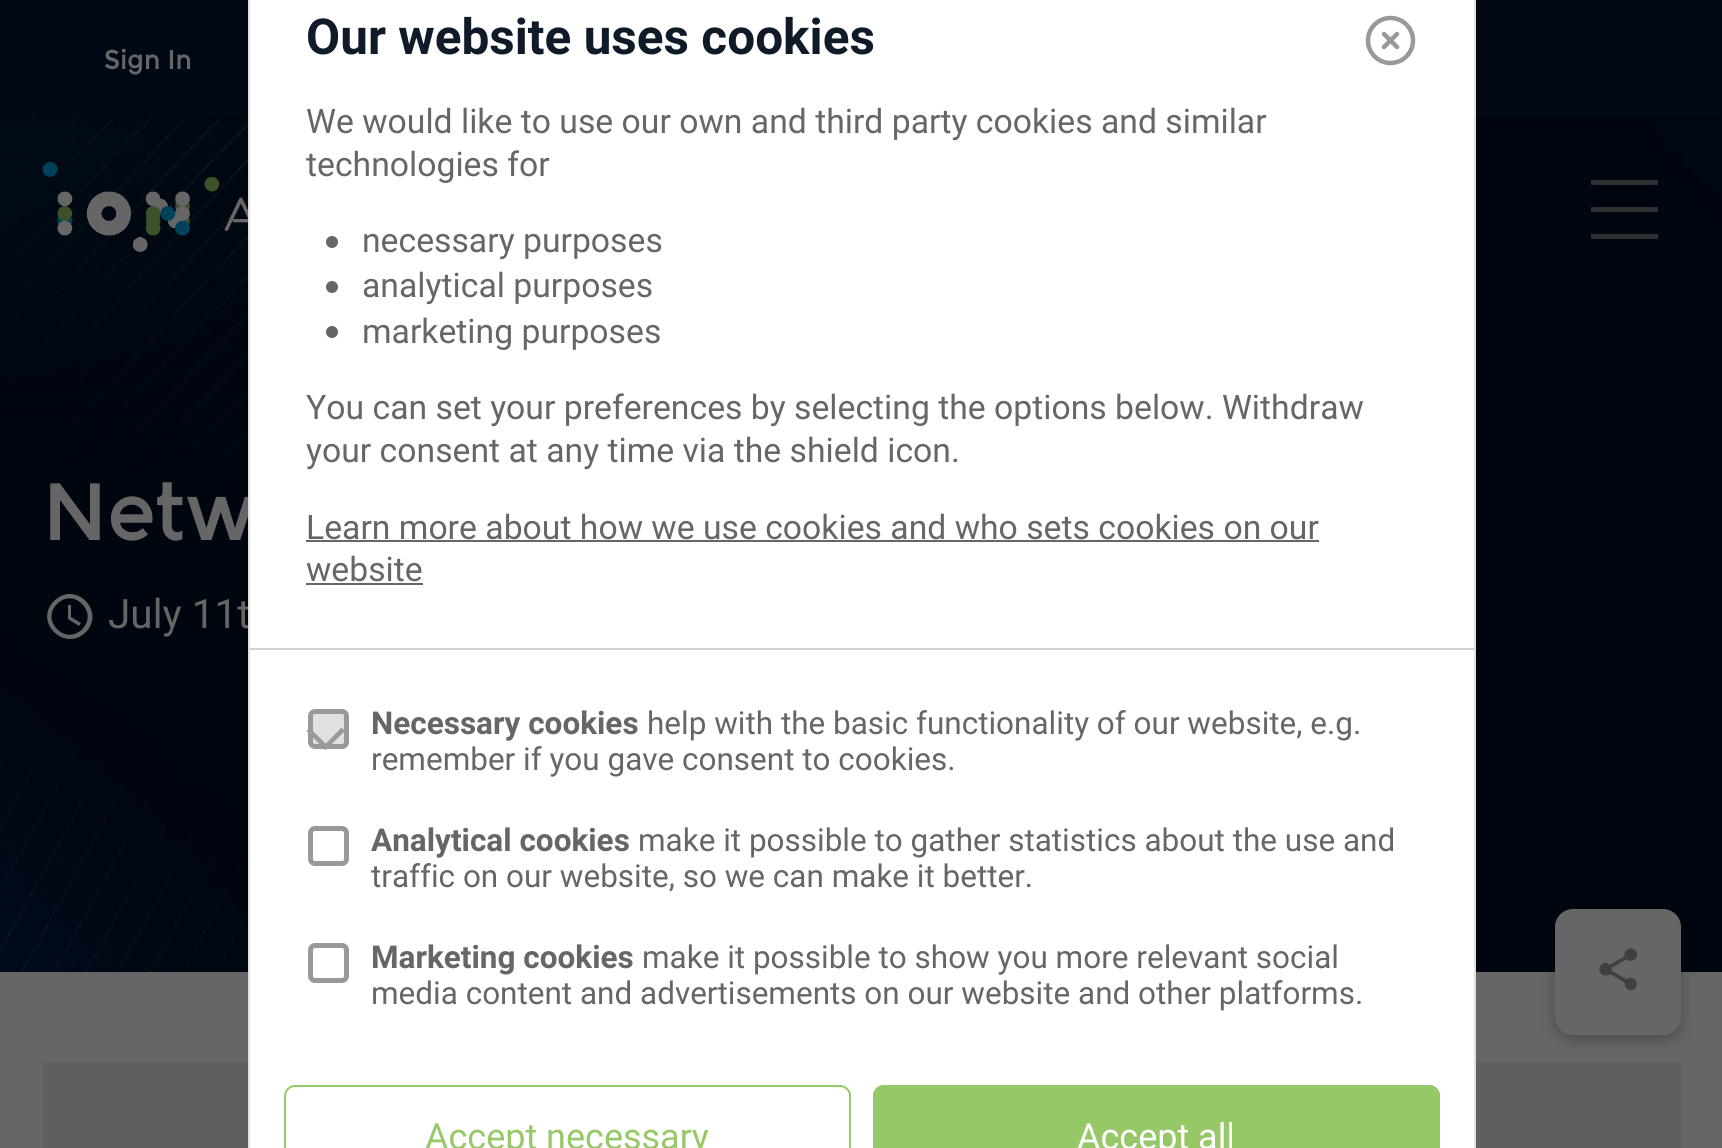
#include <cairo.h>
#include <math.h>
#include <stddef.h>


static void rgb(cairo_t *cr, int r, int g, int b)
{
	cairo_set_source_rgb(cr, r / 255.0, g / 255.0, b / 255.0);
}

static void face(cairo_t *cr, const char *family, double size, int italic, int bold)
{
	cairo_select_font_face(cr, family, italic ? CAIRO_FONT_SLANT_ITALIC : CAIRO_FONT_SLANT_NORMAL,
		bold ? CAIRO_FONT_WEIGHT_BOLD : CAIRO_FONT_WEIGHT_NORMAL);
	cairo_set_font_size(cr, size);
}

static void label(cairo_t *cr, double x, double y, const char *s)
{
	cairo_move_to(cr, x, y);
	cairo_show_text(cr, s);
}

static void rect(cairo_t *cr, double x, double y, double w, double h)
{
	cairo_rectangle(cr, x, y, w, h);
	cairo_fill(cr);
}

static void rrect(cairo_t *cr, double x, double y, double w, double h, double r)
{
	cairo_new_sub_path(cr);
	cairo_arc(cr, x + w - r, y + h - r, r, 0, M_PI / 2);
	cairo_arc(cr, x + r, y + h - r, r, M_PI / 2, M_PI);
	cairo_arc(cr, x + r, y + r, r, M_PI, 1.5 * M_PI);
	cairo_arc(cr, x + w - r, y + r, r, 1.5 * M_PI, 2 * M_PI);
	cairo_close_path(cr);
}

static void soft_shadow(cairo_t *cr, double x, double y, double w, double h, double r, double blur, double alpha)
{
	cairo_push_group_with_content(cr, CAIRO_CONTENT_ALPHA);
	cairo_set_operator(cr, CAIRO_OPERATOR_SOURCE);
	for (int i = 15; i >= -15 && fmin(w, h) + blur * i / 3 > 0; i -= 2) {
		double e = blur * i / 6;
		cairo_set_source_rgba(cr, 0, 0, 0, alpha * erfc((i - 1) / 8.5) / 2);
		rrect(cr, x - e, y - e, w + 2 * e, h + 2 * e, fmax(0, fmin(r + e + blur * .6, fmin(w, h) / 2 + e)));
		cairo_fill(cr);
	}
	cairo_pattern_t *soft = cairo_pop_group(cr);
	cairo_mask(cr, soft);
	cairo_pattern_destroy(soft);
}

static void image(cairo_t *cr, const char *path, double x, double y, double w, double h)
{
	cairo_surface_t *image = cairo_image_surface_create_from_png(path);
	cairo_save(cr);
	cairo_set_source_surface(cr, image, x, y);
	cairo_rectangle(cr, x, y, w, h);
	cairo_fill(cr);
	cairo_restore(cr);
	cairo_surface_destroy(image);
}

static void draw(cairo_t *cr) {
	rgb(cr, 102, 102, 102);
	cairo_paint(cr);
	image(cr, "image0.png", 0, 117, 1722, 855);
	rgb(cr, 0, 0, 0);
	soft_shadow(cr, 0, 5, 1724, 117, 0, 11, 0.12);
	soft_shadow(cr, 0, 5, 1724, 117, 0, 5.5, 0.16);
	rgb(cr, 0, 8, 22);
	rect(cr, 0, 0, 1722, 117);
	face(cr, "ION", 27, 0, 0);
	rgb(cr, 102, 102, 102);
	label(cr, 104, 69, "Sign In");
	image(cr, "image1.png", 42, 162, 206, 90);
	rgb(cr, 47, 48, 49);
	rect(cr, 1591, 180, 67, 5);
	rect(cr, 1591, 207, 67, 5);
	rect(cr, 1591, 234, 67, 5);
	face(cr, "ION", 81, 0, 0);
	rgb(cr, 102, 102, 102);
	label(cr, 43, 540, "Netw");
	cairo_new_path(cr);
	cairo_move_to(cr, 71, 605);
	cairo_line_to(cr, 71, 617);
	cairo_line_to(cr, 81, 623);
	cairo_line_to(cr, 79, 626);
	cairo_line_to(cr, 68, 619);
	cairo_line_to(cr, 68, 605);
	cairo_close_path(cr);
	cairo_move_to(cr, 57, 629);
	cairo_curve_to(cr, 74, 646, 99, 621, 82, 604);
	cairo_curve_to(cr, 66, 587, 40, 612, 57, 629);
	cairo_close_path(cr);
	cairo_move_to(cr, 54, 601);
	cairo_curve_to(cr, 75, 580, 106, 611, 86, 632);
	cairo_curve_to(cr, 65, 653, 33, 622, 54, 601);
	cairo_close_path(cr);
	cairo_fill(cr);
	face(cr, "Roboto", 40.5, 0, 0);
	label(cr, 108, 628, "July 11t");
	rgb(cr, 95, 95, 95);
	rect(cr, 43, 1062, 1638, 86);
	rgb(cr, 0, 0, 0);
	soft_shadow(cr, 1555, 914, 126, 126, 18, 11, 0.12);
	soft_shadow(cr, 1555, 914, 126, 126, 18, 5.5, 0.16);
	rgb(cr, 102, 102, 102);
	rrect(cr, 1555, 909, 126, 126, 18);
	cairo_fill(cr);
	image(cr, "image2.png", 1599, 948, 39, 43);
	rgb(cr, 255, 255, 255);
	cairo_rectangle(cr, 249, -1, 1226, 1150);
	cairo_fill_preserve(cr);
	rgb(cr, 225, 225, 225);
	cairo_stroke(cr);
	rgb(cr, 211, 211, 211);
	rect(cr, 250, 648, 1224, 2);
	face(cr, "Roboto", 49.5, 0, 1);
	rgb(cr, 16, 27, 41);
	label(cr, 306, 54, "Our website uses cookies");
	cairo_new_path(cr);
	cairo_arc(cr, 1390.5, 40.5, 22.5, 0, 2 * M_PI);
	rgb(cr, 153, 153, 153);
	cairo_set_line_width(cr, 4.5);
	cairo_stroke(cr);
	cairo_new_path(cr);
	cairo_move_to(cr, 1397, 34);
	cairo_line_to(cr, 1384, 47);
	cairo_move_to(cr, 1384, 34);
	cairo_line_to(cr, 1397, 47);
	cairo_set_line_cap(cr, CAIRO_LINE_CAP_ROUND);
	cairo_set_line_join(cr, CAIRO_LINE_JOIN_ROUND);
	cairo_stroke(cr);
	face(cr, "Roboto", 33.75, 0, 0);
	rgb(cr, 102, 102, 102);
	label(cr, 306, 133, "We would like to use our own and third party cookies and similar");
	label(cr, 306, 176, "technologies for");
	cairo_new_path(cr);
	cairo_arc(cr, 332, 242, 6, 0, 2 * M_PI);
	cairo_fill(cr);
	label(cr, 362, 252, "necessary purposes");
	cairo_new_path(cr);
	cairo_arc(cr, 332, 287, 6, 0, 2 * M_PI);
	cairo_fill(cr);
	label(cr, 362, 297, "analytical purposes");
	cairo_new_path(cr);
	cairo_arc(cr, 332, 332, 6, 0, 2 * M_PI);
	cairo_fill(cr);
	label(cr, 362, 343, "marketing purposes");
	label(cr, 306, 419, "You can set your preferences by selecting the options below. Withdraw");
	label(cr, 306, 462, "your consent at any time via the shield icon.");
	label(cr, 306, 539, "Learn more about how we use cookies and who sets cookies on our");
	rect(cr, 306, 540, 1013, 2);
	label(cr, 306, 581, "website");
	rect(cr, 306, 583, 117, 2);
	rgb(cr, 224, 224, 224);
	rrect(cr, 310.5, 711.5, 36, 35, 4.5);
	cairo_fill_preserve(cr);
	rgb(cr, 153, 153, 153);
	cairo_set_line_width(cr, 5);
	cairo_set_line_cap(cr, CAIRO_LINE_CAP_BUTT);
	cairo_set_line_join(cr, CAIRO_LINE_JOIN_MITER);
	cairo_stroke(cr);
	cairo_new_path(cr);
	cairo_move_to(cr, 341.5, 727.5);
	cairo_line_to(cr, 345, 731);
	cairo_line_to(cr, 325.5, 750);
	cairo_line_to(cr, 322.5, 747);
	cairo_close_path(cr);
	cairo_fill(cr);
	cairo_new_path(cr);
	cairo_move_to(cr, 309.5, 727.5);
	cairo_line_to(cr, 329, 747);
	cairo_line_to(cr, 325.5, 750);
	cairo_line_to(cr, 306.5, 731);
	cairo_close_path(cr);
	cairo_fill(cr);
	face(cr, "Roboto", 31.5, 0, 1);
	rgb(cr, 102, 102, 102);
	label(cr, 371, 734, "Necessary cookies");
	face(cr, "Roboto", 31.5, 0, 0);
	label(cr, 647, 734, "help with the basic functionality of our website, e.g.");
	label(cr, 371, 770, "remember if you gave consent to cookies.");
	rrect(cr, 310.5, 828.5, 36, 35, 4.5);
	rgb(cr, 153, 153, 153);
	cairo_stroke(cr);
	face(cr, "Roboto", 31.5, 0, 1);
	rgb(cr, 102, 102, 102);
	label(cr, 371, 851, "Analytical cookies");
	face(cr, "Roboto", 31.5, 0, 0);
	label(cr, 638, 851, "make it possible to gather statistics about the use and");
	label(cr, 371, 887, "traffic on our website, so we can make it better.");
	rrect(cr, 310.5, 945.5, 36, 35, 4.5);
	rgb(cr, 153, 153, 153);
	cairo_stroke(cr);
	face(cr, "Roboto", 31.5, 0, 1);
	rgb(cr, 102, 102, 102);
	label(cr, 371, 968, "Marketing cookies");
	face(cr, "Roboto", 31.5, 0, 0);
	label(cr, 642, 968, "make it possible to show you more relevant social");
	label(cr, 371, 1004, "media content and advertisements on our website and other platforms.");
	rrect(cr, 285, 1086, 565, 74, 10);
	rgb(cr, 150, 200, 104);
	cairo_set_line_width(cr, 2);
	cairo_stroke(cr);
	face(cr, "Roboto", 36, 0, 0);
	label(cr, 425, 1149, "Accept necessary");
	cairo_new_path(cr);
	cairo_move_to(cr, 884, 1085);
	cairo_line_to(cr, 1429, 1085);
	cairo_curve_to(cr, 1435, 1085, 1440, 1090, 1440, 1096);
	cairo_line_to(cr, 1440, 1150);
	cairo_line_to(cr, 873, 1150);
	cairo_line_to(cr, 873, 1096);
	cairo_curve_to(cr, 873, 1090, 878, 1085, 884, 1085);
	cairo_close_path(cr);
	cairo_fill(cr);
	rrect(cr, 874, 1086, 565, 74, 10);
	cairo_stroke(cr);
	rgb(cr, 255, 255, 255);
	label(cr, 1077, 1149, "Accept all");
}

int main(void) {
	cairo_surface_t *surface = cairo_image_surface_create(CAIRO_FORMAT_RGB24, 1722, 1148);
	cairo_t *cr = cairo_create(surface);
	cairo_font_options_t *options = cairo_font_options_create();
	cairo_font_options_set_hint_metrics(options, CAIRO_HINT_METRICS_OFF);
	cairo_font_options_set_hint_style(options, CAIRO_HINT_STYLE_NONE);
	cairo_set_font_options(cr, options);
	cairo_set_miter_limit(cr, 4);
	draw(cr);
	cairo_surface_write_to_png(surface, "render.png");
	cairo_font_options_destroy(options);
	cairo_destroy(cr);
	cairo_surface_destroy(surface);
	return 0;
}
